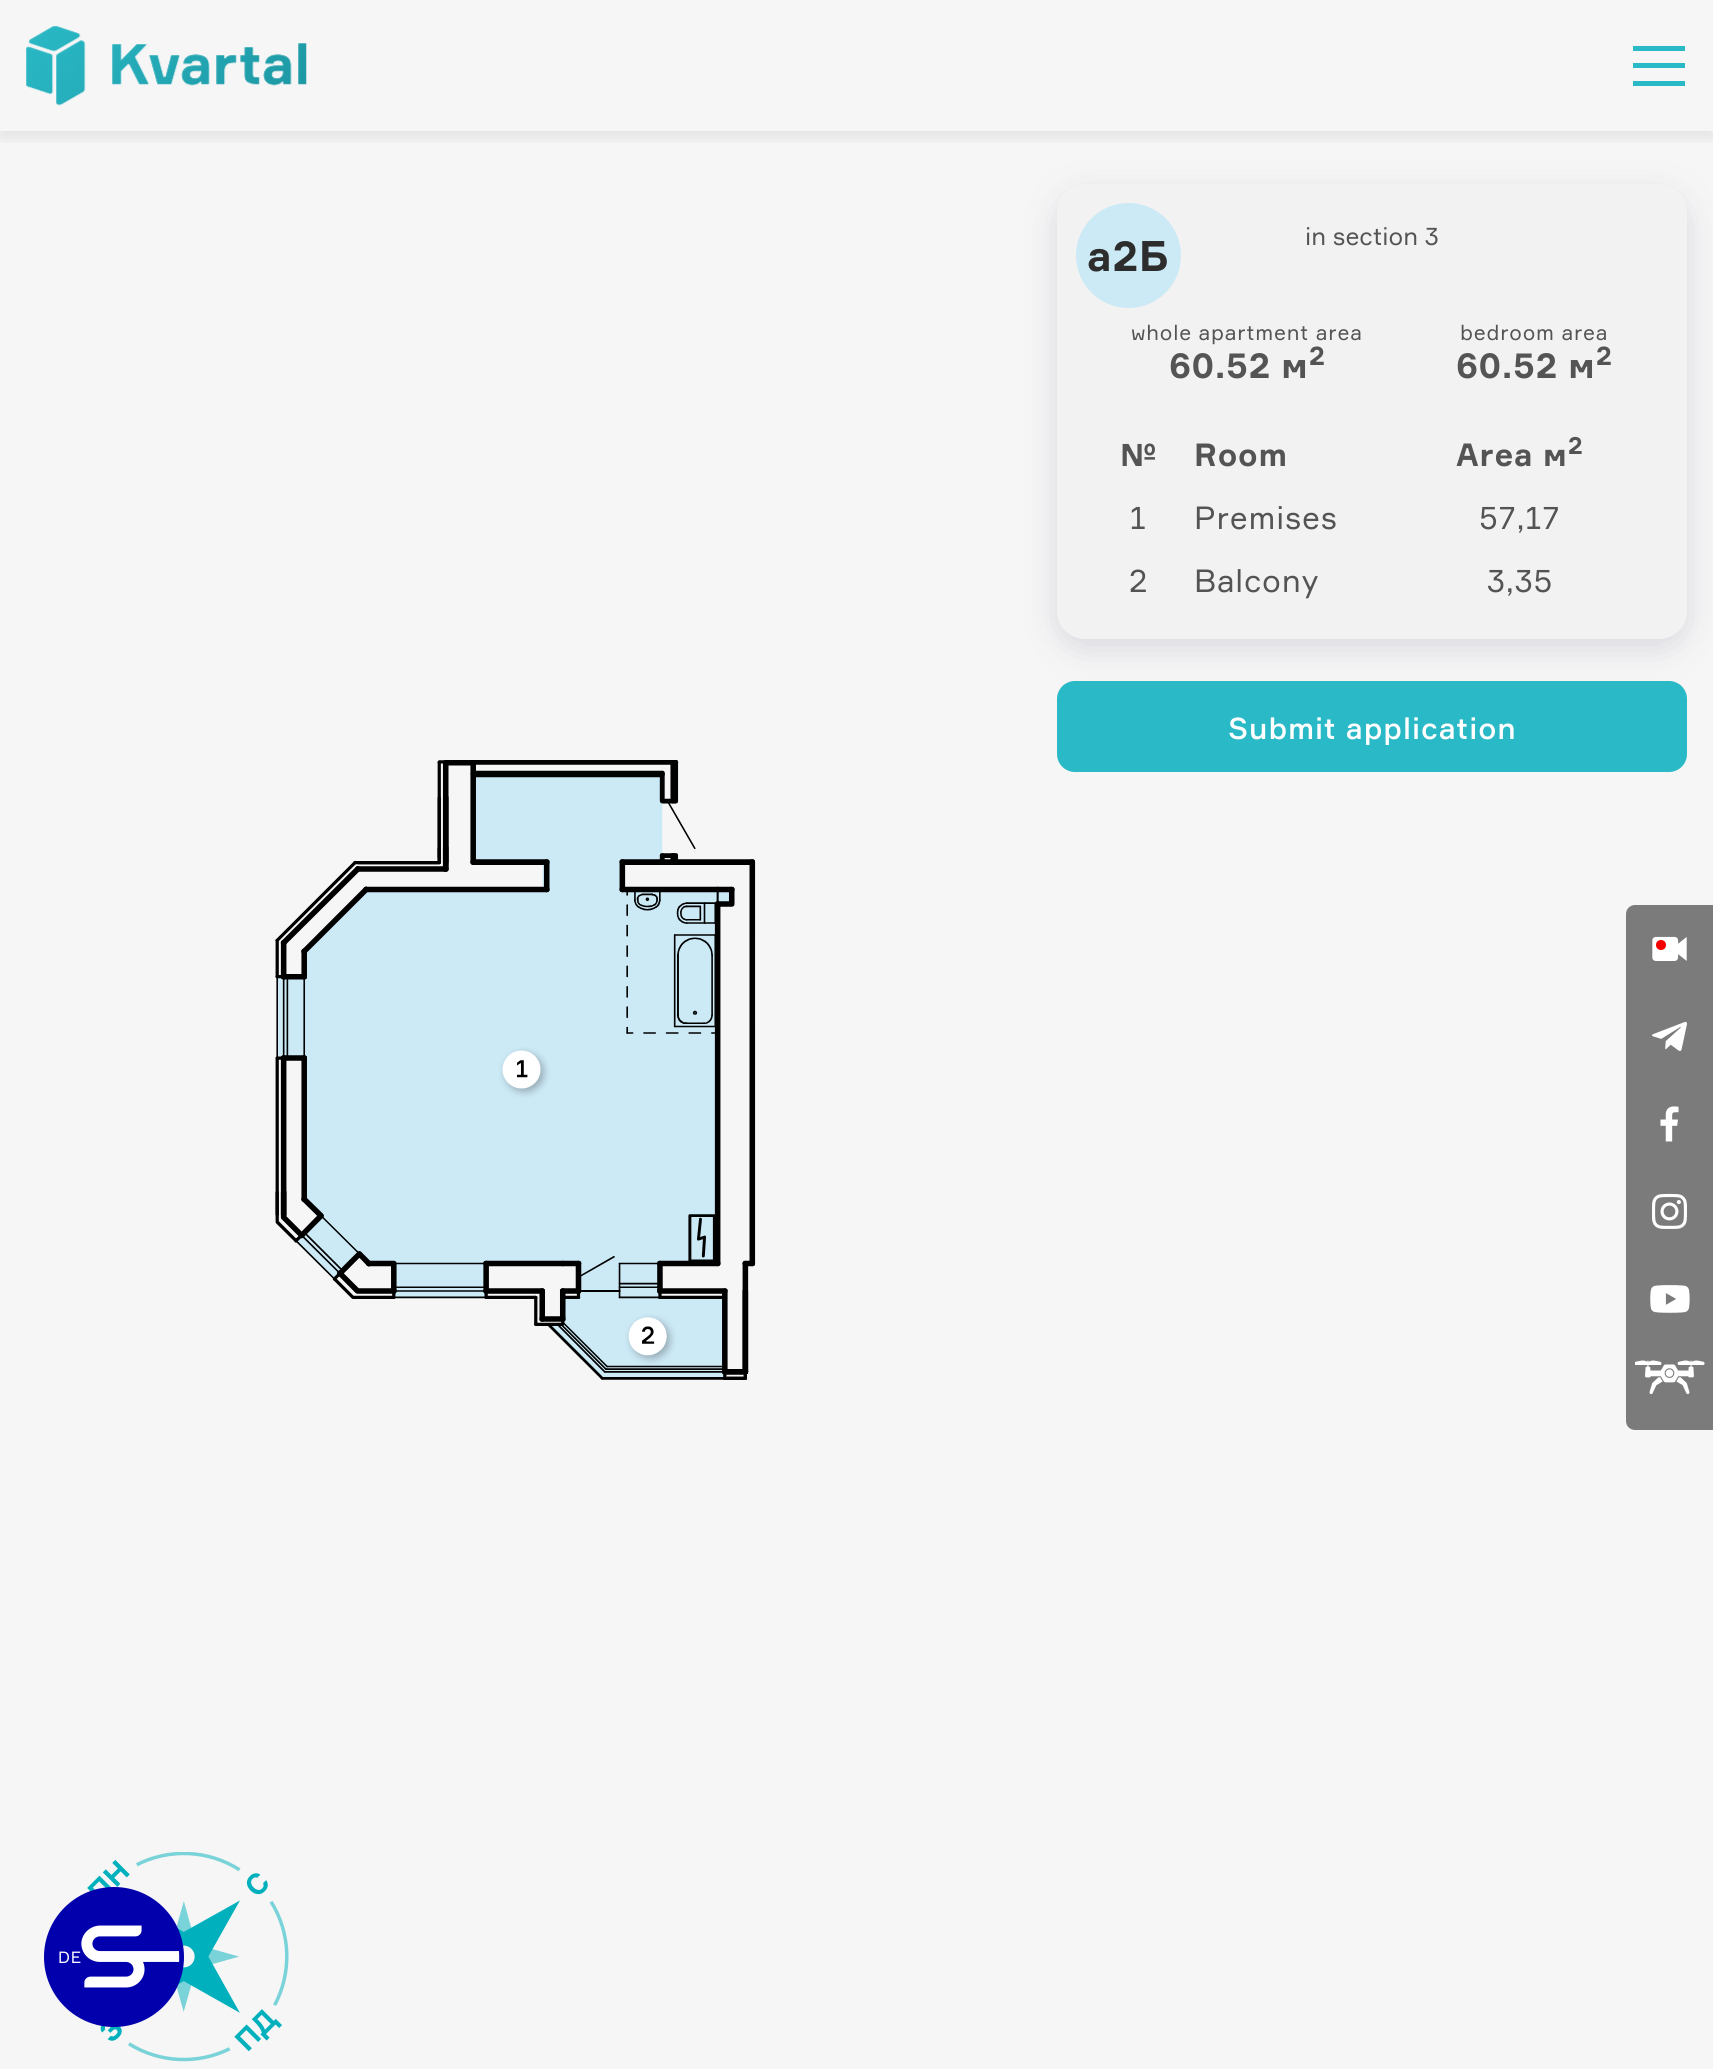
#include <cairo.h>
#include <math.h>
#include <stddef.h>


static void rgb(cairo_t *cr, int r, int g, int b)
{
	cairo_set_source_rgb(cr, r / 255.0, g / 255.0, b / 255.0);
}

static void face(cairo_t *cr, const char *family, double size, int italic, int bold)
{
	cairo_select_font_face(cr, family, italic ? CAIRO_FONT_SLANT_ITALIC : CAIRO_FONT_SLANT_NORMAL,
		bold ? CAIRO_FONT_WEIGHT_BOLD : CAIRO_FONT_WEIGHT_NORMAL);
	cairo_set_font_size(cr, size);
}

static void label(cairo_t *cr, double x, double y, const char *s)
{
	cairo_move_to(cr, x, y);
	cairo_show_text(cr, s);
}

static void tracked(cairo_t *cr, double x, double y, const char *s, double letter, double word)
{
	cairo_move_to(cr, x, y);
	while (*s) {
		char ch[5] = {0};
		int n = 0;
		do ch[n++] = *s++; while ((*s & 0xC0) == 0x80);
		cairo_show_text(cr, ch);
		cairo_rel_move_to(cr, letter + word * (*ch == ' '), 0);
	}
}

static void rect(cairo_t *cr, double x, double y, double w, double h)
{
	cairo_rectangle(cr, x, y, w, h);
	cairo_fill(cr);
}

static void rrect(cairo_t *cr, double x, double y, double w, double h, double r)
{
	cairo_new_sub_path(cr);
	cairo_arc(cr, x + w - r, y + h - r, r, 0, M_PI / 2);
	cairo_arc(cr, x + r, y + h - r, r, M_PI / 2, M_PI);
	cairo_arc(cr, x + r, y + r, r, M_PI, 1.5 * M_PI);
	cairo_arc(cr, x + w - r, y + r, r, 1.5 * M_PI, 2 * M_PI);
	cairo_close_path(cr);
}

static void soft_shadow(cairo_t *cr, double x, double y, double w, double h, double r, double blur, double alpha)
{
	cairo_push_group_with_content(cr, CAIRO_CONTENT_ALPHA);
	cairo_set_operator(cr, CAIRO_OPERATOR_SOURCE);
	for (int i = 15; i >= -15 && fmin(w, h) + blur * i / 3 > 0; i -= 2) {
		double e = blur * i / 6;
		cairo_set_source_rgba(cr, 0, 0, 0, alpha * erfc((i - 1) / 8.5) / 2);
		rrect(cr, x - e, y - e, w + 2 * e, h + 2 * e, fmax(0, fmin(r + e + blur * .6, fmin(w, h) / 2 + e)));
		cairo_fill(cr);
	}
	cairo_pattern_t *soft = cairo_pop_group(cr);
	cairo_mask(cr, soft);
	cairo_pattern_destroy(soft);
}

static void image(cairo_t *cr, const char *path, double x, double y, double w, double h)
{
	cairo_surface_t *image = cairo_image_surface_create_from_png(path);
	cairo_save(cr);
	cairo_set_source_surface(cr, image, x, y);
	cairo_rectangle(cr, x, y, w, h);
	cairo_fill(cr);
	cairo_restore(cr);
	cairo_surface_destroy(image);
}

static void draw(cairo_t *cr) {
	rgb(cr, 246, 246, 246);
	cairo_paint(cr);
	cairo_save(cr);
	cairo_rectangle(cr, 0, 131, 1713, 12);
	cairo_clip(cr);
	rgb(cr, 0, 0, 0);
	soft_shadow(cr, 0, 7, 1713, 131, 0, 7, 0.08);
	cairo_restore(cr);
	image(cr, "image0.png", 26, 26, 281, 80);
	rgb(cr, 42, 185, 198);
	rect(cr, 1633, 46, 52, 5);
	rect(cr, 1633, 81, 52, 5);
	rect(cr, 1633, 63, 52, 5);
	rrect(cr, 1058, 682, 628, 89, 17);
	cairo_fill_preserve(cr);
	cairo_stroke(cr);
	rgb(cr, 174, 174, 192);
	soft_shadow(cr, 1057, 194, 630, 455, 28, 16, 0.4);
	rgb(cr, 242, 242, 242);
	rrect(cr, 1057, 184, 630, 455, 28);
	cairo_fill(cr);
	face(cr, "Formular", 24.5, 0, 0);
	rgb(cr, 84, 84, 84);
	label(cr, 1305, 245, "in section 3");
	rgb(cr, 204, 234, 245);
	cairo_new_path(cr);
	cairo_arc(cr, 1128.5, 255.5, 52.5, 0, 2 * M_PI);
	cairo_fill(cr);
	face(cr, "Formular", 42, 0, 1);
	rgb(cr, 45, 45, 45);
	tracked(cr, 1087, 271, "а2Б", 0.8, 0);
	face(cr, "Formular", 21, 0, 0);
	rgb(cr, 84, 84, 84);
	tracked(cr, 1131, 340, "whole apartment area", 0.8, 0);
	face(cr, "Formular", 35, 0, 1);
	tracked(cr, 1169, 378, "60.52 м", 0.8, 0);
	face(cr, "Formular", 26, 0, 1);
	tracked(cr, 1309, 365, "2", 0.8, 0);
	face(cr, "Formular", 21, 0, 0);
	tracked(cr, 1460, 340, "bedroom area", 0.8, 0);
	face(cr, "Formular", 35, 0, 1);
	tracked(cr, 1456, 378, "60.52 м", 0.8, 0);
	face(cr, "Formular", 26, 0, 1);
	tracked(cr, 1596, 365, "2", 0.8, 0);
	face(cr, "Formular", 31.5, 0, 1);
	tracked(cr, 1120, 466, "№", 0.8, 0);
	tracked(cr, 1194, 466, "Room", 0.8, 0);
	tracked(cr, 1456, 466, "Area м", 0.8, 0);
	face(cr, "Formular", 24, 0, 1);
	tracked(cr, 1568, 454, "2", 0.8, 0);
	face(cr, "Formular", 31.5, 0, 0);
	tracked(cr, 1130, 529, "1", 0.8, 0);
	tracked(cr, 1194, 529, "Premises", 0.8, 0);
	tracked(cr, 1479, 529, "57,17", 0.8, 0);
	tracked(cr, 1129, 592, "2", 0.8, 0);
	tracked(cr, 1194, 592, "Balcony", 0.8, 0);
	tracked(cr, 1487, 592, "3,35", 0.8, 0);
	face(cr, "Formular Medium", 29.75, 0, 0);
	rgb(cr, 255, 255, 255);
	tracked(cr, 1228, 739, "Submit application", 0.9, 0);
	image(cr, "image1.png", 275, 760, 481, 620);
	image(cr, "image2.png", 87, 1852, 202, 210);
	rgb(cr, 123, 123, 123);
	cairo_new_path(cr);
	cairo_move_to(cr, 1635, 905);
	cairo_line_to(cr, 1713, 905);
	cairo_line_to(cr, 1713, 1430);
	cairo_line_to(cr, 1635, 1430);
	cairo_curve_to(cr, 1630, 1430, 1626, 1426, 1626, 1421);
	cairo_line_to(cr, 1626, 914);
	cairo_curve_to(cr, 1626, 909, 1630, 905, 1635, 905);
	cairo_close_path(cr);
	cairo_fill(cr);
	image(cr, "image3.png", 1652, 936, 35, 25);
	rgb(cr, 244, 0, 0);
	cairo_arc(cr, 1661, 945, 5, 0, 2 * M_PI);
	cairo_fill(cr);
	image(cr, "image4.png", 1652, 1021, 35, 30);
	image(cr, "image5.png", 1660, 1106, 19, 36);
	image(cr, "image6.png", 1652, 1193, 35, 36);
	image(cr, "image7.png", 1650, 1285, 40, 28);
	image(cr, "image8.png", 1635, 1360, 70, 35);
	rgb(cr, 2, 0, 172);
	cairo_arc(cr, 114, 1957, 70, 0, 2 * M_PI);
	cairo_fill(cr);
	face(cr, "Formular", 16, 0, 0);
	rgb(cr, 255, 255, 255);
	tracked(cr, 58, 1963, "DE", 0.8, 0);
	image(cr, "image9.png", 81, 1925, 99, 63);
}

int main(void) {
	cairo_surface_t *surface = cairo_image_surface_create(CAIRO_FORMAT_RGB24, 1713, 2069);
	cairo_t *cr = cairo_create(surface);
	cairo_font_options_t *options = cairo_font_options_create();
	cairo_font_options_set_hint_metrics(options, CAIRO_HINT_METRICS_OFF);
	cairo_font_options_set_hint_style(options, CAIRO_HINT_STYLE_NONE);
	cairo_set_font_options(cr, options);
	cairo_set_miter_limit(cr, 4);
	draw(cr);
	cairo_surface_write_to_png(surface, "render.png");
	cairo_font_options_destroy(options);
	cairo_destroy(cr);
	cairo_surface_destroy(surface);
	return 0;
}
